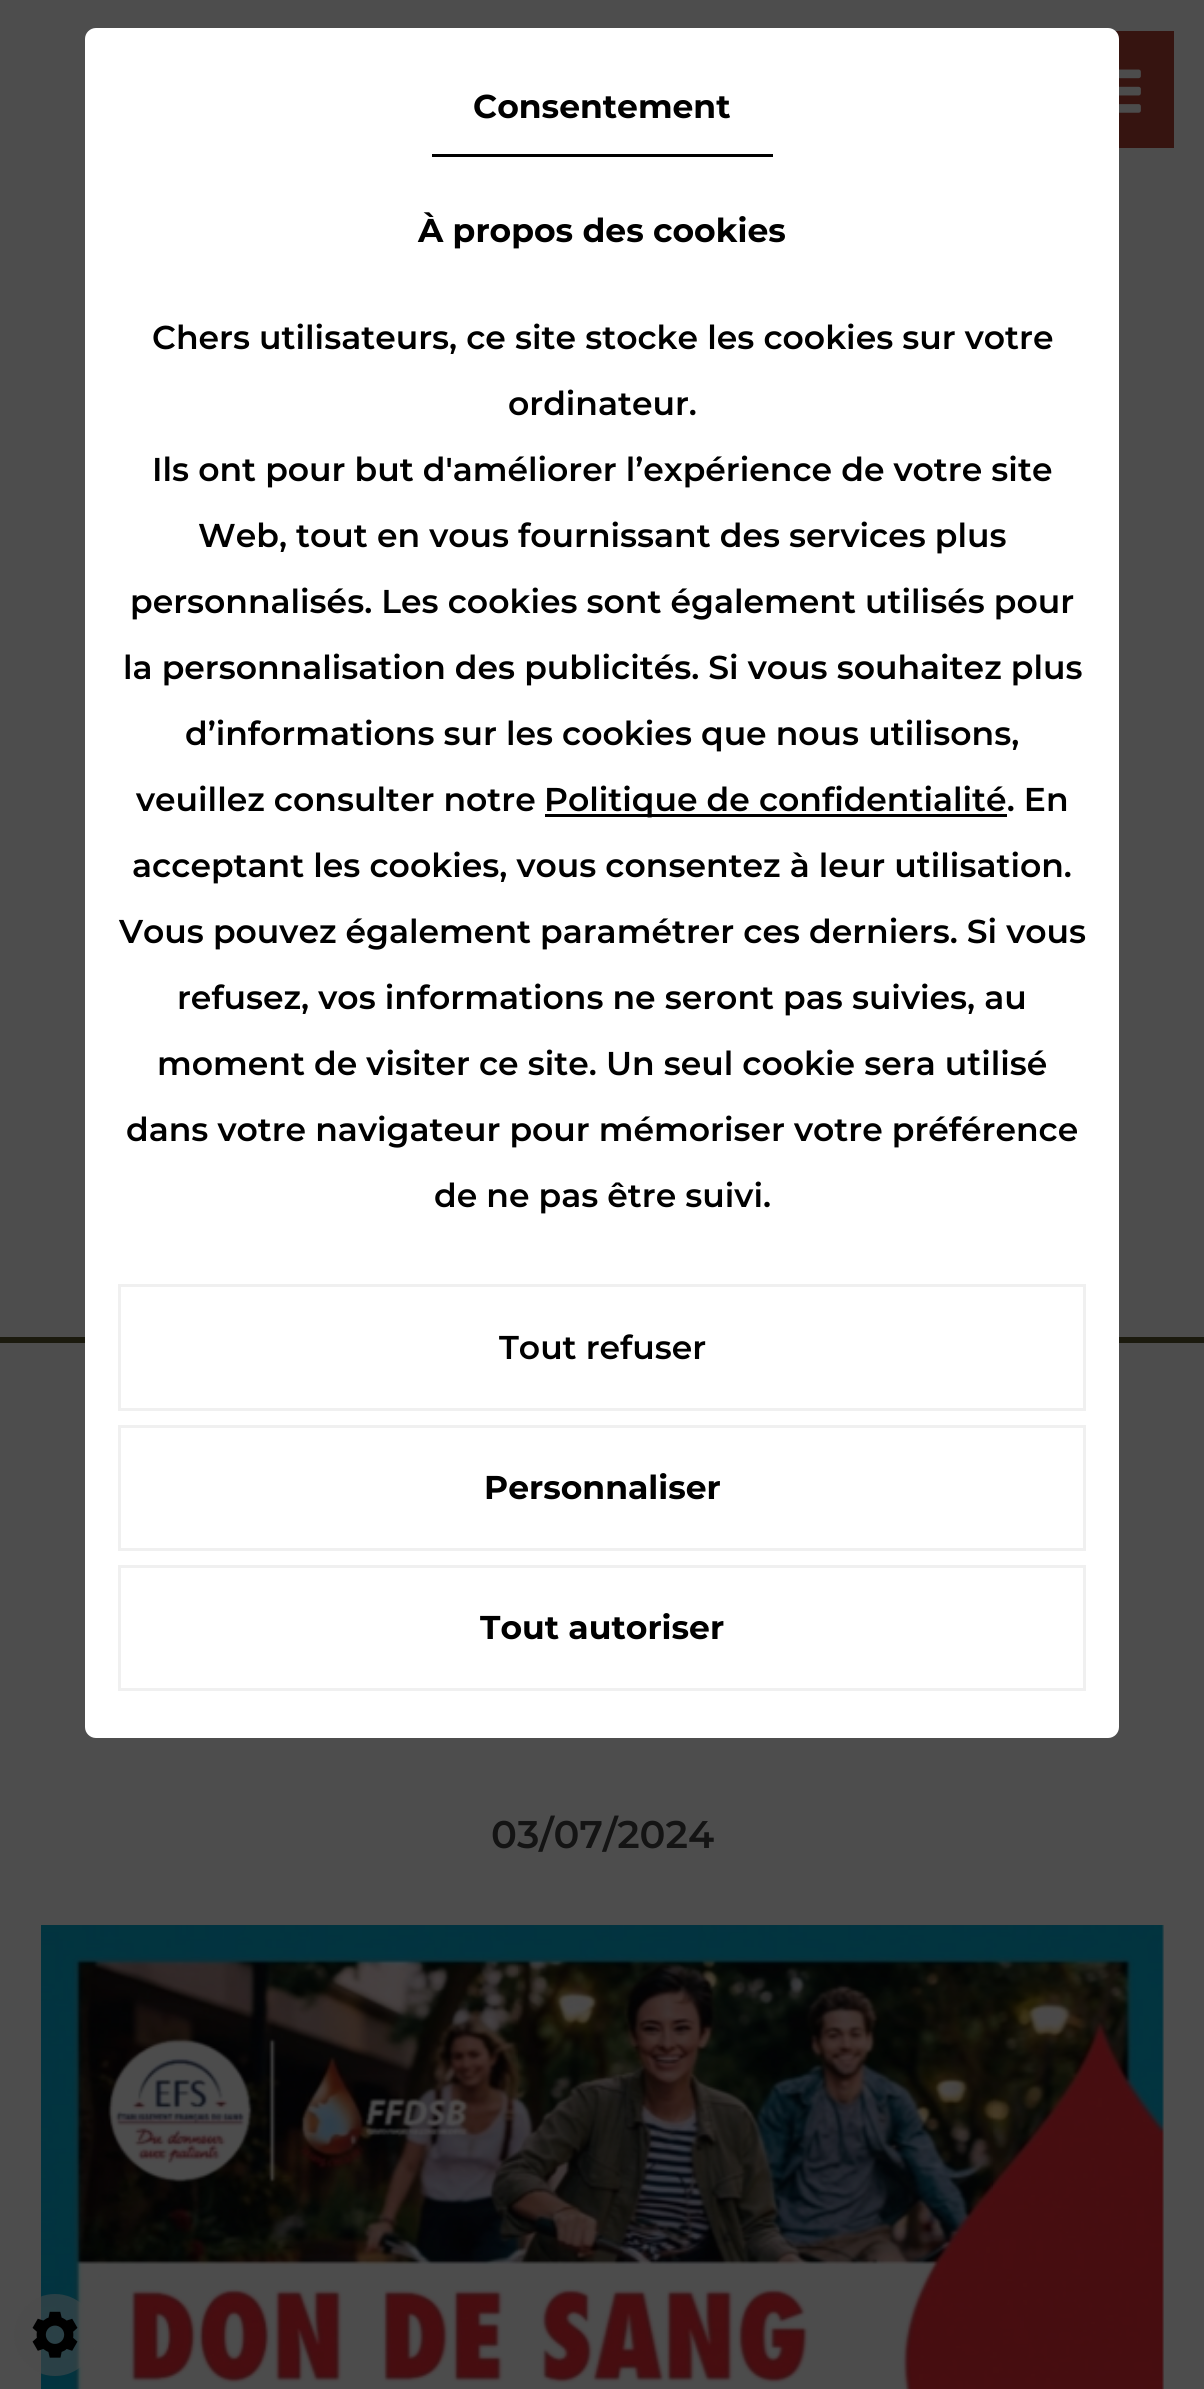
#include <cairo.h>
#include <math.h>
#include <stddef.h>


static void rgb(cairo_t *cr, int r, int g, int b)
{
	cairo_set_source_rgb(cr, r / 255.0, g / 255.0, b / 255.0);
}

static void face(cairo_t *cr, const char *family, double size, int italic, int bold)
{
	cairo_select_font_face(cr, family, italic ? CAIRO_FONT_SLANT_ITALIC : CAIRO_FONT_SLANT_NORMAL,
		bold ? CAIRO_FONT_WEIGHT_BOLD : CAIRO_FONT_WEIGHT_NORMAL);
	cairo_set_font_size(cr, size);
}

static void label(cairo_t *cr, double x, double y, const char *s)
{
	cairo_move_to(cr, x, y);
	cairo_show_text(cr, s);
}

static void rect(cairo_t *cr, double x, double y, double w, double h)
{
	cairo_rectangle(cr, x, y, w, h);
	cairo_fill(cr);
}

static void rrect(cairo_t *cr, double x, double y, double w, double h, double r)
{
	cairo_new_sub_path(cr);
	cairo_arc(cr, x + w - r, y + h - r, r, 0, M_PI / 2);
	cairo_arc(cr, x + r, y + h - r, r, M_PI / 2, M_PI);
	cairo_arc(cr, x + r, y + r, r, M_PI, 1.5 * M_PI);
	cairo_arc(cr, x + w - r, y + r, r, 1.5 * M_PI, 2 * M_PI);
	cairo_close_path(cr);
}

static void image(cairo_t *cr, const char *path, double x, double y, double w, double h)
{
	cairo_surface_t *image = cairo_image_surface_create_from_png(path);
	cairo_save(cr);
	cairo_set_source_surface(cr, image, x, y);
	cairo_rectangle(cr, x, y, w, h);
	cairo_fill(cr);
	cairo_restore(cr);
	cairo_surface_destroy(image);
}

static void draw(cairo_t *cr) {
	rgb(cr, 77, 77, 77);
	cairo_paint(cr);
	rgb(cr, 54, 20, 16);
	rect(cr, 1115, 31, 59, 117);
	rgb(cr, 27, 26, 14);
	rect(cr, 0, 1337, 1204, 6);
	rgb(cr, 255, 255, 255);
	rrect(cr, 85, 28, 1034, 1710, 11);
	cairo_fill(cr);
	rgb(cr, 0, 0, 0);
	rect(cr, 432, 154, 341, 3);
	face(cr, "Montserrat", 33, 0, 1);
	label(cr, 473, 118, "Consentement");
	label(cr, 418, 242, "À propos des cookies");
	face(cr, "Montserrat SemiBold", 33, 0, 0);
	label(cr, 152, 349, "Chers utilisateurs, ce site stocke les cookies sur votre");
	label(cr, 508, 415, "ordinateur.");
	label(cr, 152, 481, "Ils ont pour but d'améliorer l’expérience de votre site");
	label(cr, 198, 547, "Web, tout en vous fournissant des services plus");
	label(cr, 130, 613, "personnalisés. Les cookies sont également utilisés pour");
	label(cr, 123, 679, "la personnalisation des publicités. Si vous souhaitez plus");
	label(cr, 185, 745, "d’informations sur les cookies que nous utilisons,");
	label(cr, 136, 811, "veuillez consulter notre");
	rect(cr, 545, 814, 462, 3);
	label(cr, 544, 811, "Politique de confidentialité. En");
	label(cr, 132, 877, "acceptant les cookies, vous consentez à leur utilisation.");
	label(cr, 119, 943, "Vous pouvez également paramétrer ces derniers. Si vous");
	label(cr, 177, 1009, "refusez, vos informations ne seront pas suivies, au");
	label(cr, 157, 1075, "moment de visiter ce site. Un seul cookie sera utilisé");
	label(cr, 126, 1141, "dans votre navigateur pour mémoriser votre préférence");
	label(cr, 434, 1207, "de ne pas être suivi.");
	cairo_rectangle(cr, 119.5, 1285.5, 965, 124);
	rgb(cr, 240, 240, 240);
	cairo_set_line_width(cr, 3);
	cairo_stroke(cr);
	rgb(cr, 0, 0, 0);
	label(cr, 499, 1359, "Tout refuser");
	cairo_rectangle(cr, 119.5, 1426.5, 965, 123);
	rgb(cr, 240, 240, 240);
	cairo_stroke(cr);
	face(cr, "Montserrat", 33, 0, 1);
	rgb(cr, 0, 0, 0);
	label(cr, 484, 1499, "Personnaliser");
	cairo_rectangle(cr, 119.5, 1566.5, 965, 123);
	rgb(cr, 240, 240, 240);
	cairo_stroke(cr);
	rgb(cr, 0, 0, 0);
	label(cr, 480, 1639, "Tout autoriser");
	image(cr, "image2.png", 41, 1925, 1123, 464);
	cairo_set_source_rgba(cr, 0.302, 0.302, 0.302, 0.54);
	cairo_arc(cr, 55, 2335, 41, 0, 2 * M_PI);
	cairo_fill(cr);
	image(cr, "image0.png", 32, 2311, 46, 47);
	image(cr, "image1.png", 1119, 69, 22, 44);
	face(cr, "Montserrat SemiBold", 38.5, 0, 0);
	rgb(cr, 20, 20, 20);
	label(cr, 491, 1848, "03/07/2024");
}

int main(void) {
	cairo_surface_t *surface = cairo_image_surface_create(CAIRO_FORMAT_RGB24, 1204, 2389);
	cairo_t *cr = cairo_create(surface);
	cairo_font_options_t *options = cairo_font_options_create();
	cairo_font_options_set_hint_metrics(options, CAIRO_HINT_METRICS_OFF);
	cairo_font_options_set_hint_style(options, CAIRO_HINT_STYLE_NONE);
	cairo_set_font_options(cr, options);
	cairo_set_miter_limit(cr, 4);
	draw(cr);
	cairo_surface_write_to_png(surface, "render.png");
	cairo_font_options_destroy(options);
	cairo_destroy(cr);
	cairo_surface_destroy(surface);
	return 0;
}
